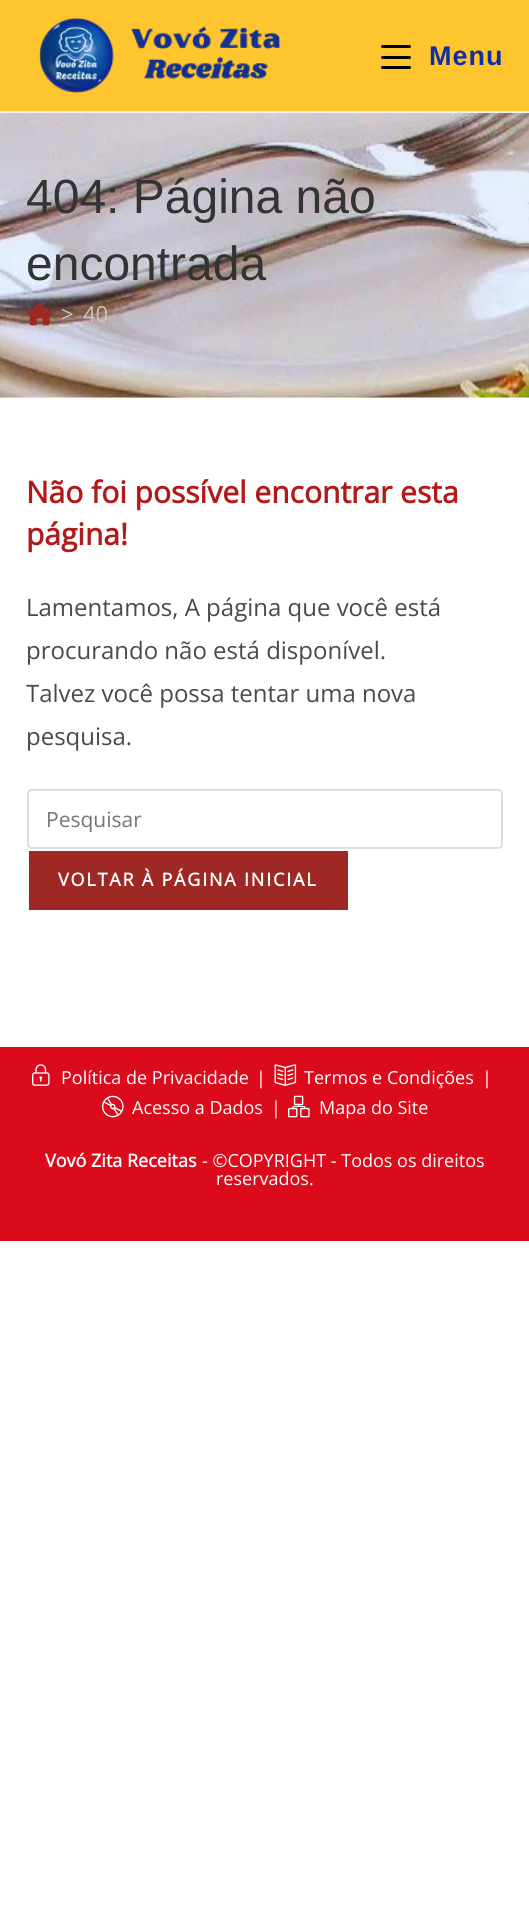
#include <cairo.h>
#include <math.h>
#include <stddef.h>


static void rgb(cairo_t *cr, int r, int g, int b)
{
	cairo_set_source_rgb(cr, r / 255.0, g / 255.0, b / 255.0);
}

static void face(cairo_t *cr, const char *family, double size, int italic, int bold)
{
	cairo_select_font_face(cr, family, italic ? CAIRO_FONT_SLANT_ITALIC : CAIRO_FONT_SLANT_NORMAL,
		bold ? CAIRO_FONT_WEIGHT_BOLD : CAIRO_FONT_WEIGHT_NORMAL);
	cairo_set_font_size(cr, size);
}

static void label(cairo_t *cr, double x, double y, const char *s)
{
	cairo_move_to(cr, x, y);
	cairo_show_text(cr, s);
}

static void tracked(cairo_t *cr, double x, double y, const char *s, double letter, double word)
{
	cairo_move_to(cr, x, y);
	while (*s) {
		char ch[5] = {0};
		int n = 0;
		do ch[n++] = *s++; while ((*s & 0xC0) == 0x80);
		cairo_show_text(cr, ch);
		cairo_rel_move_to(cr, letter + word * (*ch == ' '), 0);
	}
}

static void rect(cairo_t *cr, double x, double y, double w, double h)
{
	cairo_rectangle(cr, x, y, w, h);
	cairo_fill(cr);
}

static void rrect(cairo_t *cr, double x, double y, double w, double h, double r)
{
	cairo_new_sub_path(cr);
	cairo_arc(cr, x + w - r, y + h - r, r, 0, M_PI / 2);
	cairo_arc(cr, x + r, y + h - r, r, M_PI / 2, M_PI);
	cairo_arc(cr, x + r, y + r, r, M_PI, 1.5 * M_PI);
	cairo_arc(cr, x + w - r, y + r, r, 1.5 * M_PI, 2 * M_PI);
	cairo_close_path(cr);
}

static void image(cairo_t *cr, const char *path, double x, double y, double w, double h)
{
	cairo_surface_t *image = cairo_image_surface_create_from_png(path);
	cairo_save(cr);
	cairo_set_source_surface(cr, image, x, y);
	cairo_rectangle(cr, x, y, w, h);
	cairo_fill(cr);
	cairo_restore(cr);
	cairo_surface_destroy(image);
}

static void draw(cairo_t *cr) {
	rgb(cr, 255, 255, 255);
	cairo_paint(cr);
	rgb(cr, 255, 197, 46);
	rect(cr, 0, 0, 529, 111);
	rgb(cr, 241, 241, 241);
	rect(cr, 0, 111, 529, 2);
	image(cr, "image0.png", 39, 18, 242, 75);
	rgb(cr, 0, 0, 0);
	rrect(cr, 381, 56, 30, 3, 1.5);
	cairo_fill(cr);
	rrect(cr, 381, 45, 30, 3, 1.5);
	cairo_fill(cr);
	rrect(cr, 381, 66, 30, 3, 1.5);
	cairo_fill(cr);
	face(cr, "Liberation Sans", 27, 0, 1);
	rgb(cr, 17, 47, 163);
	tracked(cr, 429, 65, "Menu", 1, 0);
	rgb(cr, 245, 245, 245);
	rect(cr, 0, 397, 529, 1);
	image(cr, "image1.png", 0, 113, 529, 285);
	face(cr, "Liberation Sans", 48, 0, 0);
	rgb(cr, 51, 51, 51);
	label(cr, 26, 213, "404: Página não");
	label(cr, 26, 280, "encontrada");
	image(cr, "image2.png", 27, 302, 26, 24);
	face(cr, "Open Sans", 22, 0, 0);
	rgb(cr, 198, 198, 198);
	label(cr, 61, 322, ">");
	label(cr, 83, 322, "40");
	face(cr, "Open Sans", 30, 0, 1);
	rgb(cr, 178, 26, 26);
	label(cr, 26, 503, "Não foi possível encontrar esta");
	label(cr, 26, 545, "página!");
	face(cr, "Open Sans", 24, 0, 0);
	rgb(cr, 74, 74, 74);
	label(cr, 26, 616, "Lamentamos, A página que você está");
	label(cr, 26, 659, "procurando não está disponível.");
	label(cr, 26, 702, "Talvez você possa tentar uma nova");
	label(cr, 26, 745, "pesquisa.");
	rrect(cr, 28, 790, 474, 58, 4);
	rgb(cr, 221, 221, 221);
	cairo_stroke(cr);
	face(cr, "Open Sans", 21, 0, 0);
	rgb(cr, 117, 117, 117);
	label(cr, 46, 827, "Pesquisar");
	rgb(cr, 158, 40, 36);
	rect(cr, 29, 851, 319, 59);
	face(cr, "Open Sans", 18, 0, 1);
	rgb(cr, 255, 255, 255);
	tracked(cr, 58, 886, "VOLTAR À PÁGINA INICIAL", 1.8, 0);
	rgb(cr, 220, 11, 28);
	rect(cr, 0, 1047, 529, 194);
	image(cr, "image3.png", 32, 1064, 18, 22);
	face(cr, "Open Sans", 18, 0, 0);
	rgb(cr, 255, 255, 255);
	label(cr, 61, 1084, "Política de Privacidade");
	label(cr, 256, 1084, "|");
	image(cr, "image4.png", 274, 1064, 23, 22);
	label(cr, 304, 1084, "Termos e Condições");
	label(cr, 482, 1084, "|");
	image(cr, "image5.png", 102, 1095, 22, 23);
	label(cr, 132, 1114, "Acesso a Dados");
	label(cr, 271, 1114, "|");
	image(cr, "image6.png", 288, 1095, 22, 23);
	label(cr, 319, 1114, "Mapa do Site");
	face(cr, "Open Sans", 18, 0, 1);
	label(cr, 45, 1167, "Vovó Zita Receitas");
	face(cr, "Open Sans", 18, 0, 0);
	label(cr, 202, 1167, "- ©COPYRIGHT - Todos os direitos");
	label(cr, 216, 1185, "reservados.");
}

int main(void) {
	cairo_surface_t *surface = cairo_image_surface_create(CAIRO_FORMAT_RGB24, 529, 1925);
	cairo_t *cr = cairo_create(surface);
	cairo_font_options_t *options = cairo_font_options_create();
	cairo_font_options_set_hint_metrics(options, CAIRO_HINT_METRICS_OFF);
	cairo_font_options_set_hint_style(options, CAIRO_HINT_STYLE_NONE);
	cairo_set_font_options(cr, options);
	cairo_set_miter_limit(cr, 4);
	draw(cr);
	cairo_surface_write_to_png(surface, "render.png");
	cairo_font_options_destroy(options);
	cairo_destroy(cr);
	cairo_surface_destroy(surface);
	return 0;
}
